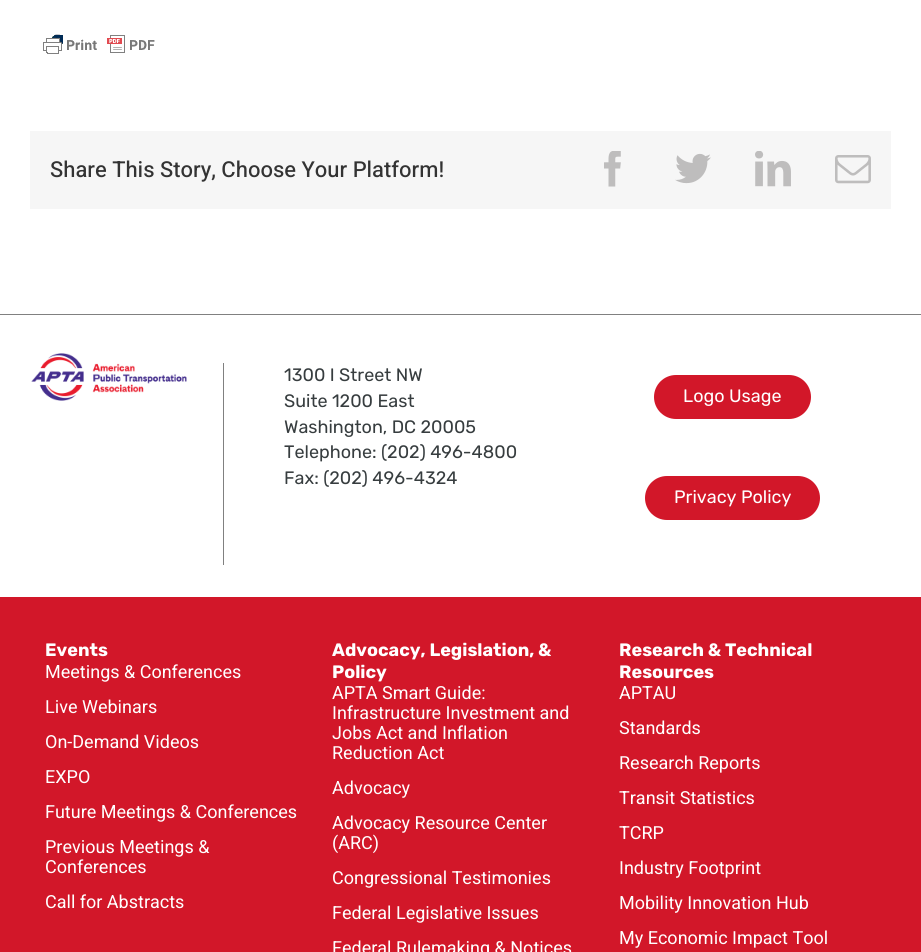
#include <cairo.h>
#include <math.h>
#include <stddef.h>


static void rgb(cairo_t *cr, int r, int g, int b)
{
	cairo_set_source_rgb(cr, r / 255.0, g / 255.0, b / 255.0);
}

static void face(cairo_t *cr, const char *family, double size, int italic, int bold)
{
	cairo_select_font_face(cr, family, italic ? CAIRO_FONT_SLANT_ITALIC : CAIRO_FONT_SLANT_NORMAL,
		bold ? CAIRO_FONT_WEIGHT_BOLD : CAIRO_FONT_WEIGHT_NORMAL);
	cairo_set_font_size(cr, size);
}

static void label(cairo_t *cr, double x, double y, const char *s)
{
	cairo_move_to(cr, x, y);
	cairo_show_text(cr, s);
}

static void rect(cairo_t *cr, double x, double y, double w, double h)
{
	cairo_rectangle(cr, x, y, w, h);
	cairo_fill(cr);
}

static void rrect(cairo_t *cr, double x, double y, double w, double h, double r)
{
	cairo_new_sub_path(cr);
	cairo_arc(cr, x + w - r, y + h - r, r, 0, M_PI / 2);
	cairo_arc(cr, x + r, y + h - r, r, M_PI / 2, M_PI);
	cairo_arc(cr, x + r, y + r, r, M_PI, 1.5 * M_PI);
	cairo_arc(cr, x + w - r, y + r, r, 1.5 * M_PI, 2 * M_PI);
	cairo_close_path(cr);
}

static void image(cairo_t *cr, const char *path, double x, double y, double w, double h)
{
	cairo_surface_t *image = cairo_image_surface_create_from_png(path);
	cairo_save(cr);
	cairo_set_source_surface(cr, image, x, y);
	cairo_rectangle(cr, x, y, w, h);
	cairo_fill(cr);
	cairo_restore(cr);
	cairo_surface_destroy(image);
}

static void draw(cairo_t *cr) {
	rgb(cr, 255, 255, 255);
	cairo_paint(cr);
	image(cr, "image0.png", 43, 34, 112, 20);
	rgb(cr, 246, 246, 246);
	rect(cr, 30, 131, 861, 78);
	face(cr, "Heebo Medium", 22, 0, 0);
	rgb(cr, 51, 51, 51);
	label(cr, 50, 177, "Share This Story, Choose Your Platform!");
	image(cr, "image1.png", 604, 151, 17, 36);
	image(cr, "image2.png", 675, 153, 36, 31);
	image(cr, "image3.png", 755, 151, 36, 36);
	image(cr, "image4.png", 835, 155, 36, 29);
	rgb(cr, 128, 128, 128);
	rect(cr, 0, 314, 921, 1);
	image(cr, "image5.png", 31, 353, 156, 48);
	rect(cr, 223, 363, 1, 202);
	face(cr, "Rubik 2 Light", 18, 0, 0);
	rgb(cr, 55, 61, 63);
	label(cr, 284, 381, "1300 I Street NW");
	label(cr, 284, 407, "Suite 1200 East");
	label(cr, 284, 433, "Washington, DC 20005");
	label(cr, 284, 458, "Telephone: (202) 496-4800");
	label(cr, 284, 484, "Fax: (202) 496-4324");
	rgb(cr, 210, 23, 41);
	rrect(cr, 654, 375, 157, 44, 22);
	cairo_fill(cr);
	rgb(cr, 255, 255, 255);
	label(cr, 683, 402, "Logo Usage");
	rgb(cr, 210, 23, 41);
	rrect(cr, 645, 476, 175, 44, 22);
	cairo_fill(cr);
	rgb(cr, 255, 255, 255);
	label(cr, 674, 503, "Privacy Policy");
	rgb(cr, 210, 23, 41);
	rect(cr, 0, 597, 921, 355);
	face(cr, "Rubik Light", 18, 0, 0);
	rgb(cr, 255, 255, 255);
	label(cr, 45, 656, "Events");
	face(cr, "Heebo", 18, 0, 0);
	label(cr, 45, 678, "Meetings & Conferences");
	label(cr, 45, 713, "Live Webinars");
	label(cr, 45, 748, "On-Demand Videos");
	label(cr, 45, 783, "EXPO");
	label(cr, 45, 818, "Future Meetings & Conferences");
	label(cr, 45, 853, "Previous Meetings &");
	label(cr, 45, 873, "Conferences");
	label(cr, 45, 908, "Call for Abstracts");
	face(cr, "Rubik Light", 18, 0, 0);
	label(cr, 332, 656, "Advocacy, Legislation, &");
	label(cr, 332, 678, "Policy");
	face(cr, "Heebo", 18, 0, 0);
	label(cr, 332, 699, "APTA Smart Guide:");
	label(cr, 332, 719, "Infrastructure Investment and");
	label(cr, 332, 739, "Jobs Act and Inflation");
	label(cr, 332, 759, "Reduction Act");
	label(cr, 332, 794, "Advocacy");
	label(cr, 332, 829, "Advocacy Resource Center");
	label(cr, 332, 849, "(ARC)");
	label(cr, 332, 884, "Congressional Testimonies");
	label(cr, 332, 919, "Federal Legislative Issues");
	label(cr, 332, 954, "Federal Rulemaking & Notices");
	face(cr, "Rubik Light", 18, 0, 0);
	label(cr, 619, 656, "Research & Technical");
	label(cr, 619, 678, "Resources");
	face(cr, "Heebo", 18, 0, 0);
	label(cr, 619, 699, "APTAU");
	label(cr, 619, 734, "Standards");
	label(cr, 619, 769, "Research Reports");
	label(cr, 619, 804, "Transit Statistics");
	label(cr, 619, 839, "TCRP");
	label(cr, 619, 874, "Industry Footprint");
	label(cr, 619, 909, "Mobility Innovation Hub");
	label(cr, 619, 944, "My Economic Impact Tool");
}

int main(void) {
	cairo_surface_t *surface = cairo_image_surface_create(CAIRO_FORMAT_RGB24, 921, 952);
	cairo_t *cr = cairo_create(surface);
	cairo_font_options_t *options = cairo_font_options_create();
	cairo_font_options_set_hint_metrics(options, CAIRO_HINT_METRICS_OFF);
	cairo_font_options_set_hint_style(options, CAIRO_HINT_STYLE_NONE);
	cairo_set_font_options(cr, options);
	cairo_set_miter_limit(cr, 4);
	draw(cr);
	cairo_surface_write_to_png(surface, "render.png");
	cairo_font_options_destroy(options);
	cairo_destroy(cr);
	cairo_surface_destroy(surface);
	return 0;
}
